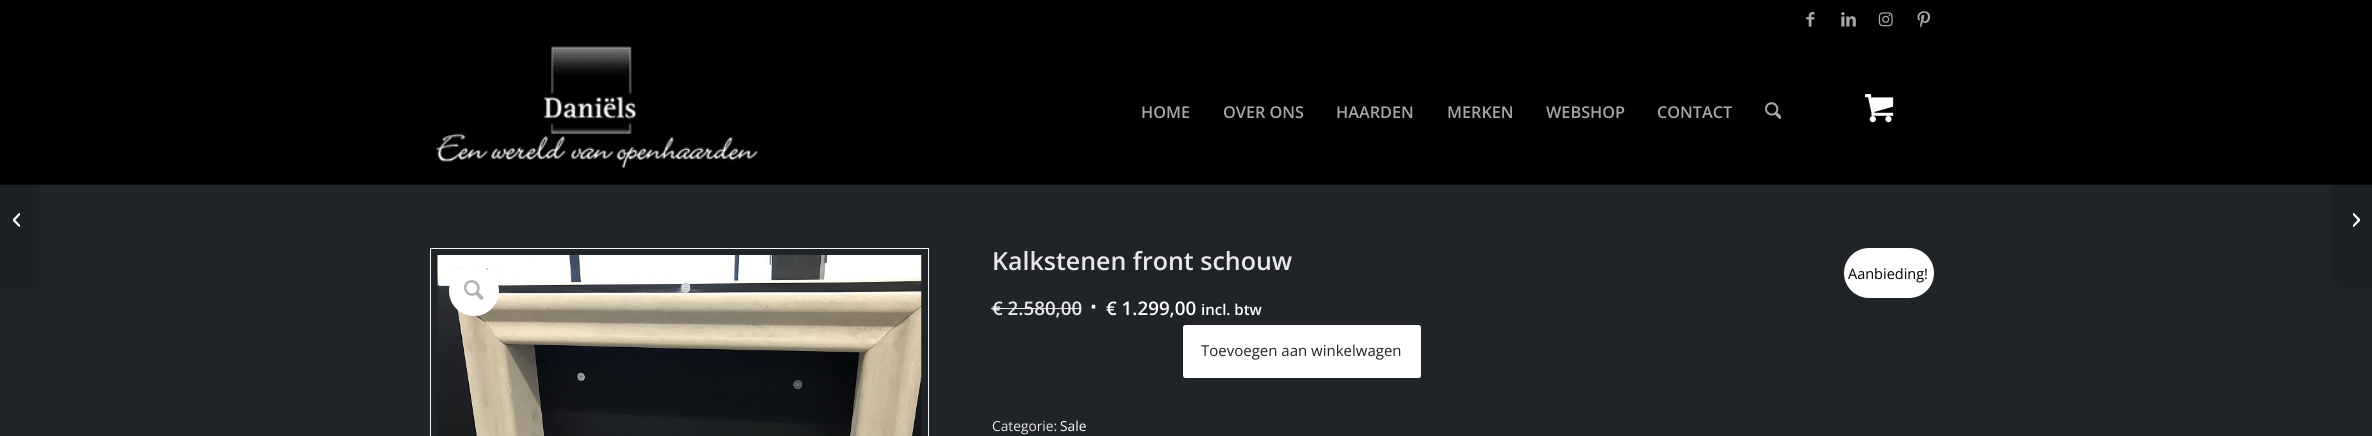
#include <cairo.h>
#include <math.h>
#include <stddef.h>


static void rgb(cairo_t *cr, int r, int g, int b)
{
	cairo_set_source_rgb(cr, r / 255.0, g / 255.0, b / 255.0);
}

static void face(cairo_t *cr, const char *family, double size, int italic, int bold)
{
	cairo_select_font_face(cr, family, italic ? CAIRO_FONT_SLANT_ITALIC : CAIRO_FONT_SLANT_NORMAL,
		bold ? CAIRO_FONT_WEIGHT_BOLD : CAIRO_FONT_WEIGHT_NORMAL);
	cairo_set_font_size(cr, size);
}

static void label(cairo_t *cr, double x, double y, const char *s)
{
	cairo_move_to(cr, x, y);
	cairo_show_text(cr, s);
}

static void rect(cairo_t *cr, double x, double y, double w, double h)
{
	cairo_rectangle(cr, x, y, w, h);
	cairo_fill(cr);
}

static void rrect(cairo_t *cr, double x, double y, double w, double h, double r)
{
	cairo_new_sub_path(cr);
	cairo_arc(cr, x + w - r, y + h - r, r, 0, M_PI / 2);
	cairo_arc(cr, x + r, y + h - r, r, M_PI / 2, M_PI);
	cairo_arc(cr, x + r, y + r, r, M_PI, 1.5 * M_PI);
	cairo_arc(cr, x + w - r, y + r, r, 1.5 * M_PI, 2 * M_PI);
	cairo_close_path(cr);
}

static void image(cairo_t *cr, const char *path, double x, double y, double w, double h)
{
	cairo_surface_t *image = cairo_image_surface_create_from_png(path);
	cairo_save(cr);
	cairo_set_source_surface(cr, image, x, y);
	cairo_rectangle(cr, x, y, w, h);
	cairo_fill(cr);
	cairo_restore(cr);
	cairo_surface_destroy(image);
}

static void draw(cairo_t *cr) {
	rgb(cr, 0, 0, 0);
	cairo_paint(cr);
	image(cr, "image0.png", 1806, 12, 9, 15);
	image(cr, "image1.png", 1841, 12, 15, 15);
	image(cr, "image2.png", 1878, 12, 15, 15);
	image(cr, "image3.png", 1917, 11, 14, 17);
	image(cr, "image4.png", 433, 46, 325, 122);
	face(cr, "Open Sans SemiBold", 16.25, 0, 0);
	rgb(cr, 167, 167, 167);
	label(cr, 1141, 118, "HOME");
	label(cr, 1223, 118, "OVER ONS");
	label(cr, 1336, 118, "HAARDEN");
	label(cr, 1447, 118, "MERKEN");
	label(cr, 1546, 118, "WEBSHOP");
	label(cr, 1657, 118, "CONTACT");
	image(cr, "image5.png", 1765, 102, 16, 17);
	image(cr, "image6.png", 1865, 94, 29, 29);
	rgb(cr, 32, 35, 40);
	rect(cr, 0, 185, 2372, 251);
	rgb(cr, 12, 12, 12);
	rect(cr, 0, 184, 2372, 1);
	cairo_set_source_rgba(cr, 0, 0, 0, 0.1);
	cairo_new_path(cr);
	cairo_move_to(cr, 0, 150);
	cairo_line_to(cr, 34, 150);
	cairo_curve_to(cr, 37, 150, 39, 152, 39, 155);
	cairo_line_to(cr, 39, 283);
	cairo_curve_to(cr, 39, 286, 37, 288, 34, 288);
	cairo_line_to(cr, 0, 288);
	cairo_close_path(cr);
	cairo_fill(cr);
	image(cr, "image7.png", 13, 213, 7, 14);
	cairo_new_path(cr);
	cairo_move_to(cr, 2339, 150);
	cairo_line_to(cr, 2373, 150);
	cairo_line_to(cr, 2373, 288);
	cairo_line_to(cr, 2339, 288);
	cairo_curve_to(cr, 2336, 288, 2334, 286, 2334, 283);
	cairo_line_to(cr, 2334, 155);
	cairo_curve_to(cr, 2334, 152, 2336, 150, 2339, 150);
	cairo_close_path(cr);
	cairo_fill(cr);
	image(cr, "image8.png", 2353, 213, 7, 14);
	face(cr, "Open Sans SemiBold", 25, 0, 0);
	rgb(cr, 232, 232, 232);
	label(cr, 992, 270, "Kalkstenen front schouw");
	face(cr, "Open Sans SemiBold", 18.75, 0, 0);
	label(cr, 992, 315, "€ 2.580,00");
	rect(cr, 991, 308, 90, 1);
	face(cr, "Liberation Sans", 25, 0, 1);
	rgb(cr, 255, 255, 255);
	label(cr, 1090, 315, "∙");
	face(cr, "Open Sans SemiBold", 18.75, 0, 0);
	label(cr, 1106, 315, "€ 1.299,00");
	face(cr, "Open Sans SemiBold", 15, 0, 0);
	label(cr, 1201, 315, "incl. btw");
	rrect(cr, 1183, 325, 238, 53, 2.5);
	cairo_fill(cr);
	face(cr, "Open Sans", 15, 0, 0);
	rgb(cr, 32, 35, 40);
	label(cr, 1201, 356, "Toevoegen aan winkelwagen");
	face(cr, "Open Sans", 13.75, 0, 0);
	rgb(cr, 232, 232, 232);
	label(cr, 992, 431, "Categorie:");
	rgb(cr, 255, 255, 255);
	label(cr, 1060, 431, "Sale");
	cairo_rectangle(cr, 430.5, 248.5, 498, 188);
	rgb(cr, 242, 244, 245);
	cairo_set_line_width(cr, 1);
	cairo_stroke(cr);
	image(cr, "image9.png", 437, 255, 485, 181);
	rgb(cr, 255, 255, 255);
	cairo_arc(cr, 474, 291, 25, 0, 2 * M_PI);
	cairo_fill(cr);
	image(cr, "image10.png", 464, 280, 20, 20);
	rrect(cr, 1844, 248, 90, 50, 25);
	cairo_fill(cr);
	face(cr, "Open Sans", 14.5, 0, 0);
	rgb(cr, 0, 0, 0);
	label(cr, 1848, 279, "Aanbieding!");
}

int main(void) {
	cairo_surface_t *surface = cairo_image_surface_create(CAIRO_FORMAT_RGB24, 2372, 436);
	cairo_t *cr = cairo_create(surface);
	cairo_font_options_t *options = cairo_font_options_create();
	cairo_font_options_set_hint_metrics(options, CAIRO_HINT_METRICS_OFF);
	cairo_font_options_set_hint_style(options, CAIRO_HINT_STYLE_NONE);
	cairo_set_font_options(cr, options);
	cairo_set_miter_limit(cr, 4);
	draw(cr);
	cairo_surface_write_to_png(surface, "render.png");
	cairo_font_options_destroy(options);
	cairo_destroy(cr);
	cairo_surface_destroy(surface);
	return 0;
}
